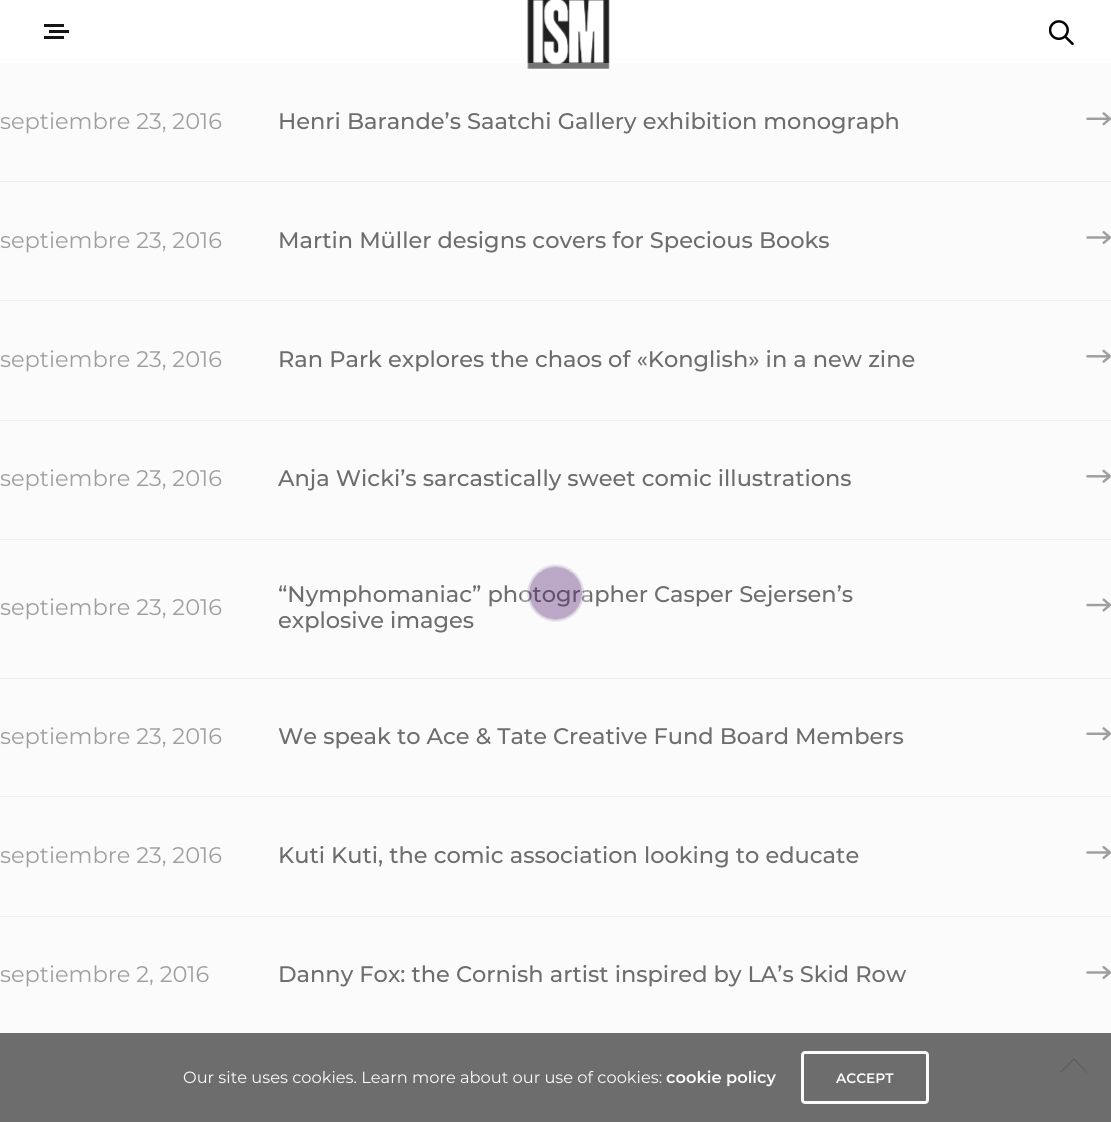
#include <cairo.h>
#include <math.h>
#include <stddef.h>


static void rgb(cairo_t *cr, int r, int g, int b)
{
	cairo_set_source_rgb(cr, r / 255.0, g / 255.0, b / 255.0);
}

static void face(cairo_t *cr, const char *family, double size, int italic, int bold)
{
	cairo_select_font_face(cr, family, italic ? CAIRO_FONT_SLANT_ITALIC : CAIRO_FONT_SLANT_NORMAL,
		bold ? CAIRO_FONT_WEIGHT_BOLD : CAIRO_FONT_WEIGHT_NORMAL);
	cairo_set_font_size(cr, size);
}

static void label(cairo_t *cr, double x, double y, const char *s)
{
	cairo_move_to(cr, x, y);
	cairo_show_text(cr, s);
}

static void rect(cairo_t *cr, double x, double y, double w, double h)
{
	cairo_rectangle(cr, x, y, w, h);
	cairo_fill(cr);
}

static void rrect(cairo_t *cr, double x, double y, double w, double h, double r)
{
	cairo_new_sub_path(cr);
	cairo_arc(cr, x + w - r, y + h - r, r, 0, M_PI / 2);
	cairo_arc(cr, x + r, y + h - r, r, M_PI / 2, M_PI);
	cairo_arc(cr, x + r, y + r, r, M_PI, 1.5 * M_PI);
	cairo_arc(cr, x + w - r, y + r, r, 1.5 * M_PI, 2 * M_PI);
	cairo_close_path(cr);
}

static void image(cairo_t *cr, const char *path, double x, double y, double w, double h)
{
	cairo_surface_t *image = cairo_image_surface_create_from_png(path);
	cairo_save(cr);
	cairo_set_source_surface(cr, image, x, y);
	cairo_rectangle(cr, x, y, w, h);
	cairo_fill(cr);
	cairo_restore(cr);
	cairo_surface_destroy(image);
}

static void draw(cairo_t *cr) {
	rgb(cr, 255, 255, 255);
	cairo_paint(cr);
	image(cr, "image2.png", 527, 0, 83, 69);
	face(cr, "Montserrat", 22.5, 0, 0);
	rgb(cr, 102, 102, 102);
	label(cr, 0, 129, "septiembre 23, 2016");
	face(cr, "Montserrat Medium", 22.5, 0, 0);
	rgb(cr, 21, 21, 21);
	label(cr, 278, 129, "Henri Barande’s Saatchi Gallery exhibition monograph");
	image(cr, "image4.png", 1086, 112, 25, 14);
	rgb(cr, 230, 230, 230);
	rect(cr, 0, 181, 1111, 1);
	face(cr, "Montserrat", 22.5, 0, 0);
	rgb(cr, 102, 102, 102);
	label(cr, 0, 248, "septiembre 23, 2016");
	face(cr, "Montserrat Medium", 22.5, 0, 0);
	rgb(cr, 21, 21, 21);
	label(cr, 278, 248, "Martin Müller designs covers for Specious Books");
	image(cr, "image5.png", 1086, 231, 25, 13);
	rgb(cr, 230, 230, 230);
	rect(cr, 0, 300, 1111, 1);
	face(cr, "Montserrat", 22.5, 0, 0);
	rgb(cr, 102, 102, 102);
	label(cr, 0, 367, "septiembre 23, 2016");
	face(cr, "Montserrat Medium", 22.5, 0, 0);
	rgb(cr, 21, 21, 21);
	label(cr, 278, 367, "Ran Park explores the chaos of «Konglish» in a new zine");
	image(cr, "image6.png", 1086, 349, 25, 14);
	rgb(cr, 230, 230, 230);
	rect(cr, 0, 420, 1111, 1);
	face(cr, "Montserrat", 22.5, 0, 0);
	rgb(cr, 102, 102, 102);
	label(cr, 0, 486, "septiembre 23, 2016");
	face(cr, "Montserrat Medium", 22.5, 0, 0);
	rgb(cr, 21, 21, 21);
	label(cr, 278, 486, "Anja Wicki’s sarcastically sweet comic illustrations");
	image(cr, "image6.png", 1086, 469, 25, 14);
	rgb(cr, 230, 230, 230);
	rect(cr, 0, 539, 1111, 1);
	face(cr, "Montserrat", 22.5, 0, 0);
	rgb(cr, 102, 102, 102);
	label(cr, 0, 615, "septiembre 23, 2016");
	face(cr, "Montserrat Medium", 22.5, 0, 0);
	rgb(cr, 21, 21, 21);
	label(cr, 278, 602, "“Nymphomaniac” photographer Casper Sejersen’s");
	label(cr, 278, 628, "explosive images");
	image(cr, "image7.png", 1086, 598, 25, 14);
	rgb(cr, 230, 230, 230);
	rect(cr, 0, 678, 1111, 1);
	face(cr, "Montserrat", 22.5, 0, 0);
	rgb(cr, 102, 102, 102);
	label(cr, 0, 744, "septiembre 23, 2016");
	face(cr, "Montserrat Medium", 22.5, 0, 0);
	rgb(cr, 21, 21, 21);
	label(cr, 278, 744, "We speak to Ace & Tate Creative Fund Board Members");
	image(cr, "image4.png", 1086, 727, 25, 14);
	rgb(cr, 230, 230, 230);
	rect(cr, 0, 796, 1111, 1);
	face(cr, "Montserrat", 22.5, 0, 0);
	rgb(cr, 102, 102, 102);
	label(cr, 0, 863, "septiembre 23, 2016");
	face(cr, "Montserrat Medium", 22.5, 0, 0);
	rgb(cr, 21, 21, 21);
	label(cr, 278, 863, "Kuti Kuti, the comic association looking to educate");
	image(cr, "image5.png", 1086, 846, 25, 13);
	rgb(cr, 230, 230, 230);
	rect(cr, 0, 916, 1111, 1);
	face(cr, "Montserrat", 22.5, 0, 0);
	rgb(cr, 102, 102, 102);
	label(cr, 0, 982, "septiembre 2, 2016");
	face(cr, "Montserrat Medium", 22.5, 0, 0);
	rgb(cr, 21, 21, 21);
	label(cr, 278, 982, "Danny Fox: the Cornish artist inspired by LA’s Skid Row");
	image(cr, "image5.png", 1086, 966, 25, 13);
	rect(cr, 0, 1033, 1111, 89);
	cairo_new_path(cr);
	cairo_move_to(cr, 1060.5, 1072.5);
	cairo_line_to(cr, 1074, 1059);
	cairo_line_to(cr, 1087, 1072.5);
	rgb(cr, 0, 0, 0);
	cairo_set_line_width(cr, 1.6);
	cairo_set_line_join(cr, CAIRO_LINE_JOIN_BEVEL);
	cairo_stroke(cr);
	face(cr, "Montserrat", 16.25, 0, 0);
	rgb(cr, 255, 255, 255);
	label(cr, 183, 1083, "Our site uses cookies. Learn more about our use of cookies:");
	face(cr, "Montserrat SemiBold", 16.25, 0, 0);
	label(cr, 666, 1083, "cookie policy");
	rrect(cr, 802.5, 1052.5, 125, 50, 2.5);
	cairo_set_line_width(cr, 3);
	cairo_set_line_join(cr, CAIRO_LINE_JOIN_MITER);
	cairo_stroke(cr);
	face(cr, "Montserrat SemiBold", 13.75, 0, 0);
	label(cr, 836, 1083, "ACCEPT");
	cairo_set_source_rgba(cr, 0.976, 0.976, 0.976, 0.22);
	rect(cr, 0, 63, 1111, 1059);
	image(cr, "image0.png", 521, 564, 69, 58);
	rect(cr, 0, 63, 1111, 1059);
	image(cr, "image1.png", 521, 565, 69, 57);
	rgb(cr, 21, 21, 21);
	rect(cr, 44, 24, 20, 3);
	rect(cr, 49, 30, 20, 3);
	rect(cr, 44, 36, 20, 3);
	image(cr, "image3.png", 1049, 20, 25, 25);
}

int main(void) {
	cairo_surface_t *surface = cairo_image_surface_create(CAIRO_FORMAT_RGB24, 1111, 1122);
	cairo_t *cr = cairo_create(surface);
	cairo_font_options_t *options = cairo_font_options_create();
	cairo_font_options_set_hint_metrics(options, CAIRO_HINT_METRICS_OFF);
	cairo_font_options_set_hint_style(options, CAIRO_HINT_STYLE_NONE);
	cairo_set_font_options(cr, options);
	cairo_set_miter_limit(cr, 4);
	draw(cr);
	cairo_surface_write_to_png(surface, "render.png");
	cairo_font_options_destroy(options);
	cairo_destroy(cr);
	cairo_surface_destroy(surface);
	return 0;
}
